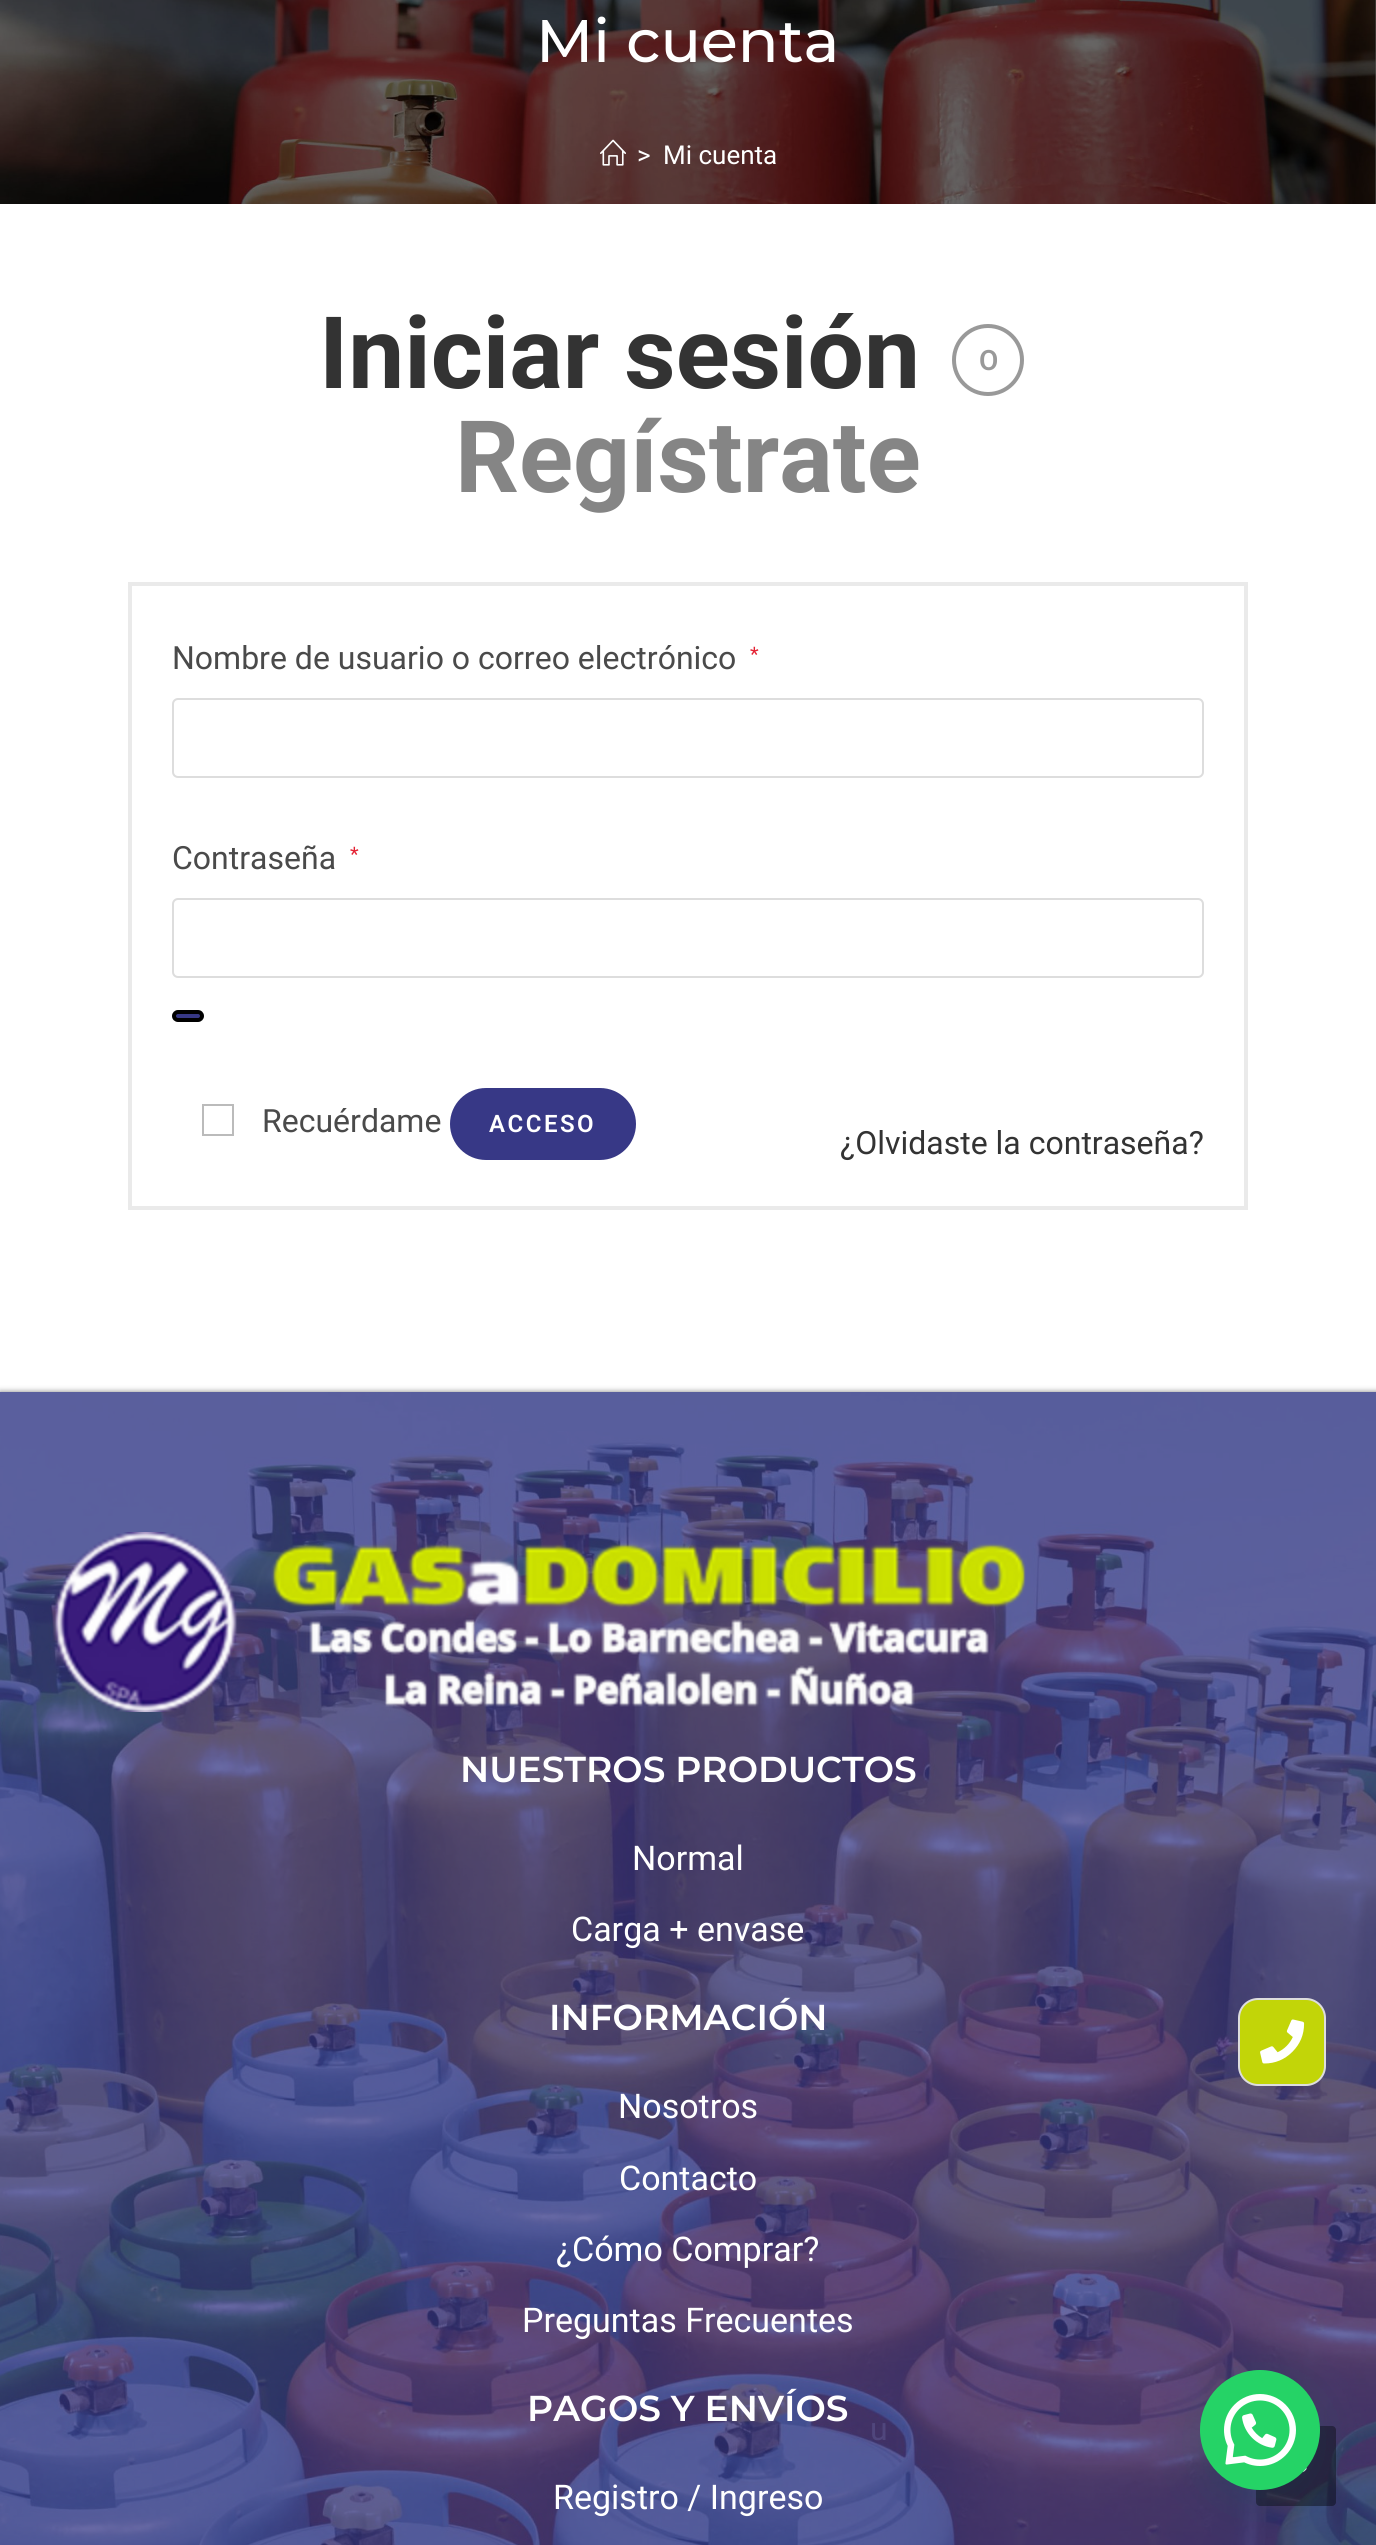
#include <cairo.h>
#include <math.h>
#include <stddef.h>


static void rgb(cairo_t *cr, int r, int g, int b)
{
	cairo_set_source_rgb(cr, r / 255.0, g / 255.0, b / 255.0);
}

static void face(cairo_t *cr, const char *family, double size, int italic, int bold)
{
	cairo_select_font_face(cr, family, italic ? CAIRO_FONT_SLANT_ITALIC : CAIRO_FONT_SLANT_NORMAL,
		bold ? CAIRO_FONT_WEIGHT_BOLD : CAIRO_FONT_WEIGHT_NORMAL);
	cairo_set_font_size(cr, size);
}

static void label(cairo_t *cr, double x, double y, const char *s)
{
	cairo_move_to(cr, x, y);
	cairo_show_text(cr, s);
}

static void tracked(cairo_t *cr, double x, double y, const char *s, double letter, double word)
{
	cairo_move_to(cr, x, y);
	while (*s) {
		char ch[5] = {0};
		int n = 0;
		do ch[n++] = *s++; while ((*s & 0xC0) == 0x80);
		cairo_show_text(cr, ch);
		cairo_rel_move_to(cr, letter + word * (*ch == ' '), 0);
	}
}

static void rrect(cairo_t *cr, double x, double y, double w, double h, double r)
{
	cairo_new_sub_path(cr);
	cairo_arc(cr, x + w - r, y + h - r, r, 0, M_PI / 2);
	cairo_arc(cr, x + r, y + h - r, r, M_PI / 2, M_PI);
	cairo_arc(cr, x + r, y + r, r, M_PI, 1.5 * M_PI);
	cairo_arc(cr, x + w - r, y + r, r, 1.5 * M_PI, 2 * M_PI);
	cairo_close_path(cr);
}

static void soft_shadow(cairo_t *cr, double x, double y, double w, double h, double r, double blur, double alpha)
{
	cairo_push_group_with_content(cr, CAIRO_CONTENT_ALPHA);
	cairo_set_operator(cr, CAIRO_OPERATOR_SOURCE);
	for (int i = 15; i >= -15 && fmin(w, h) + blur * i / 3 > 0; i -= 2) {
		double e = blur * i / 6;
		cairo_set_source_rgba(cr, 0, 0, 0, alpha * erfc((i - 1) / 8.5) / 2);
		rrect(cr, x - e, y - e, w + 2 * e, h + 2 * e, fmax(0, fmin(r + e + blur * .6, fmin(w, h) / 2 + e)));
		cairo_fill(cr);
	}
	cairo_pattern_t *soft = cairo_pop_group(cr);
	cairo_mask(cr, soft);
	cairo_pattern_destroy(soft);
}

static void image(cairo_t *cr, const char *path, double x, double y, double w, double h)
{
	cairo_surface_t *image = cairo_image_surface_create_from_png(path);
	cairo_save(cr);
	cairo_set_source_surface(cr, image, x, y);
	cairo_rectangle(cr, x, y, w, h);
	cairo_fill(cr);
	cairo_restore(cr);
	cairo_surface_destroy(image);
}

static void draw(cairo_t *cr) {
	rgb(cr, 255, 255, 255);
	cairo_paint(cr);
	image(cr, "image0.png", 0, 0, 1376, 204);
	face(cr, "Montserrat Medium", 60, 0, 0);
	rgb(cr, 255, 255, 255);
	label(cr, 536, 62, "Mi cuenta");
	image(cr, "image1.png", 600, 139, 26, 27);
	face(cr, "Roboto", 26, 0, 0);
	label(cr, 637, 164, ">");
	label(cr, 663, 164, "Mi cuenta");
	face(cr, "Roboto", 100, 0, 1);
	rgb(cr, 51, 51, 51);
	label(cr, 319, 388, "Iniciar sesión");
	cairo_new_path(cr);
	cairo_arc(cr, 988, 360, 34, 0, 2 * M_PI);
	rgb(cr, 153, 153, 153);
	cairo_set_line_width(cr, 4);
	cairo_stroke(cr);
	face(cr, "Roboto SemiBold", 28, 0, 0);
	label(cr, 979, 370, "O");
	face(cr, "Roboto", 100, 0, 1);
	rgb(cr, 133, 133, 133);
	label(cr, 455, 492, "Regístrate");
	cairo_rectangle(cr, 130, 584, 1116, 624);
	rgb(cr, 234, 234, 234);
	cairo_stroke(cr);
	face(cr, "Roboto", 32, 0, 0);
	rgb(cr, 74, 74, 74);
	label(cr, 172, 669, "Nombre de usuario o correo electrónico");
	face(cr, "Roboto", 20, 0, 0);
	rgb(cr, 228, 34, 52);
	label(cr, 750, 661, "*");
	rrect(cr, 173, 699, 1030, 78, 5);
	rgb(cr, 221, 221, 221);
	cairo_set_line_width(cr, 2);
	cairo_stroke(cr);
	face(cr, "Roboto", 32, 0, 0);
	rgb(cr, 74, 74, 74);
	label(cr, 172, 869, "Contraseña");
	face(cr, "Roboto", 20, 0, 0);
	rgb(cr, 228, 34, 52);
	label(cr, 350, 861, "*");
	rrect(cr, 173, 899, 1030, 78, 5);
	rgb(cr, 221, 221, 221);
	cairo_stroke(cr);
	rgb(cr, 55, 56, 134);
	rrect(cr, 174, 1012, 28, 8, 4);
	cairo_fill_preserve(cr);
	rgb(cr, 0, 0, 0);
	cairo_set_line_width(cr, 4);
	cairo_stroke(cr);
	cairo_rectangle(cr, 203, 1105, 30, 30);
	rgb(cr, 187, 187, 187);
	cairo_set_line_width(cr, 2);
	cairo_stroke(cr);
	face(cr, "Roboto", 32, 0, 0);
	rgb(cr, 74, 74, 74);
	label(cr, 262, 1132, "Recuérdame");
	rgb(cr, 55, 56, 134);
	rrect(cr, 450, 1088, 186, 72, 36);
	cairo_fill(cr);
	face(cr, "Roboto SemiBold", 24, 0, 0);
	rgb(cr, 255, 255, 255);
	tracked(cr, 489, 1132, "ACCESO", 2.5, 0);
	face(cr, "Roboto", 32, 0, 0);
	rgb(cr, 51, 51, 51);
	label(cr, 840, 1154, "¿Olvidaste la contraseña?");
	rgb(cr, 0, 0, 0);
	soft_shadow(cr, 0, 1392, 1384, 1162, 0, 3, 0.5);
	image(cr, "image2.png", 0, 1392, 1376, 1153);
	image(cr, "image3.png", 53, 1532, 973, 180);
	face(cr, "Montserrat SemiBold", 36, 0, 0);
	rgb(cr, 255, 255, 255);
	label(cr, 460, 1782, "NUESTROS PRODUCTOS");
	face(cr, "Roboto", 34, 0, 0);
	label(cr, 632, 1870, "Normal");
	label(cr, 571, 1941, "Carga + envase");
	face(cr, "Montserrat SemiBold", 36, 0, 0);
	label(cr, 549, 2030, "INFORMACIÓN");
	face(cr, "Roboto", 34, 0, 0);
	label(cr, 618, 2118, "Nosotros");
	label(cr, 619, 2190, "Contacto");
	label(cr, 556, 2261, "¿Cómo Comprar?");
	label(cr, 522, 2332, "Preguntas Frecuentes");
	face(cr, "Montserrat SemiBold", 36, 0, 0);
	label(cr, 527, 2421, "PAGOS Y ENVÍOS");
	face(cr, "Roboto", 34, 0, 0);
	label(cr, 553, 2509, "Registro / Ingreso");
	rgb(cr, 194, 213, 8);
	rrect(cr, 1239, 1999, 86, 86, 19);
	cairo_fill_preserve(cr);
	rgb(cr, 221, 221, 221);
	cairo_stroke(cr);
	image(cr, "image4.png", 1260, 2019, 45, 45);
	cairo_set_source_rgba(cr, 0, 0, 0, 0.4);
	rrect(cr, 1256, 2426, 80, 80, 4);
	cairo_fill(cr);
	image(cr, "image6.png", 1302, 2467, 5, 5);
	rgb(cr, 7, 94, 84);
	soft_shadow(cr, 1202, 2382, 120, 120, 60, 24, 0.24);
	rgb(cr, 37, 211, 102);
	cairo_arc(cr, 1260, 2430, 60, 0, 2 * M_PI);
	cairo_fill(cr);
	image(cr, "image5.png", 1224, 2394, 72, 72);
	face(cr, "Roboto", 32, 0, 0);
	rgb(cr, 80, 70, 124);
	label(cr, 870, 2440, "u");
}

int main(void) {
	cairo_surface_t *surface = cairo_image_surface_create(CAIRO_FORMAT_RGB24, 1376, 2545);
	cairo_t *cr = cairo_create(surface);
	cairo_font_options_t *options = cairo_font_options_create();
	cairo_font_options_set_hint_metrics(options, CAIRO_HINT_METRICS_OFF);
	cairo_font_options_set_hint_style(options, CAIRO_HINT_STYLE_NONE);
	cairo_set_font_options(cr, options);
	cairo_set_miter_limit(cr, 4);
	draw(cr);
	cairo_surface_write_to_png(surface, "render.png");
	cairo_font_options_destroy(options);
	cairo_destroy(cr);
	cairo_surface_destroy(surface);
	return 0;
}
